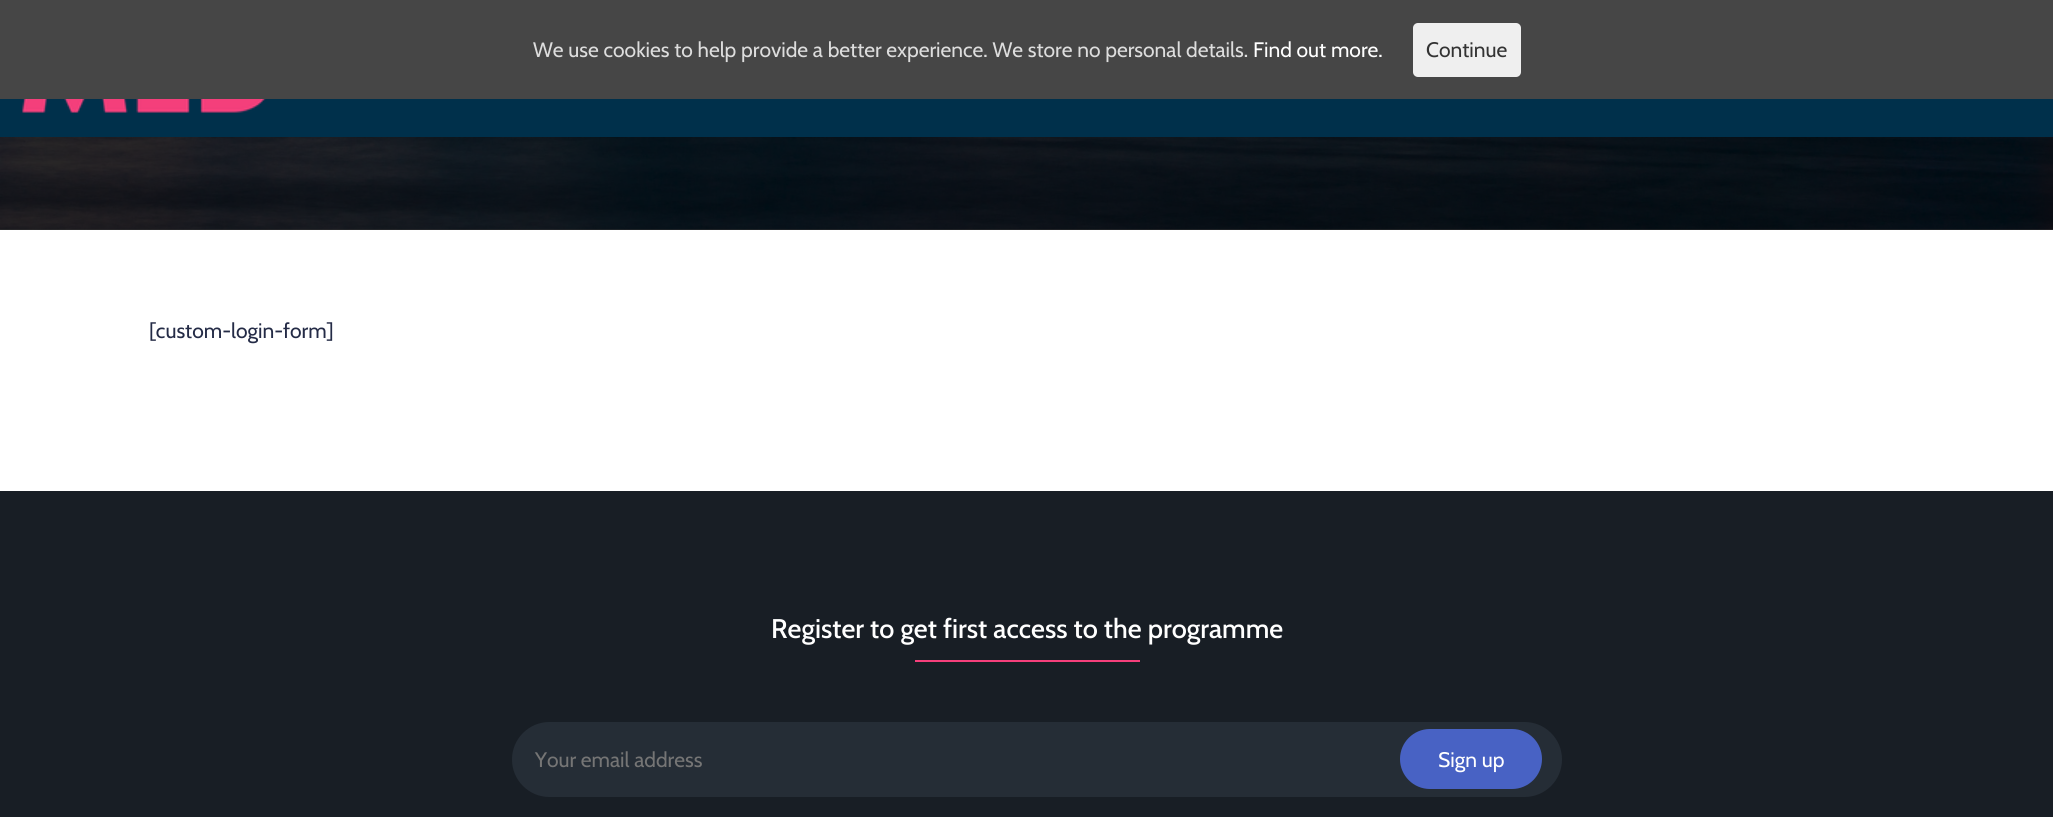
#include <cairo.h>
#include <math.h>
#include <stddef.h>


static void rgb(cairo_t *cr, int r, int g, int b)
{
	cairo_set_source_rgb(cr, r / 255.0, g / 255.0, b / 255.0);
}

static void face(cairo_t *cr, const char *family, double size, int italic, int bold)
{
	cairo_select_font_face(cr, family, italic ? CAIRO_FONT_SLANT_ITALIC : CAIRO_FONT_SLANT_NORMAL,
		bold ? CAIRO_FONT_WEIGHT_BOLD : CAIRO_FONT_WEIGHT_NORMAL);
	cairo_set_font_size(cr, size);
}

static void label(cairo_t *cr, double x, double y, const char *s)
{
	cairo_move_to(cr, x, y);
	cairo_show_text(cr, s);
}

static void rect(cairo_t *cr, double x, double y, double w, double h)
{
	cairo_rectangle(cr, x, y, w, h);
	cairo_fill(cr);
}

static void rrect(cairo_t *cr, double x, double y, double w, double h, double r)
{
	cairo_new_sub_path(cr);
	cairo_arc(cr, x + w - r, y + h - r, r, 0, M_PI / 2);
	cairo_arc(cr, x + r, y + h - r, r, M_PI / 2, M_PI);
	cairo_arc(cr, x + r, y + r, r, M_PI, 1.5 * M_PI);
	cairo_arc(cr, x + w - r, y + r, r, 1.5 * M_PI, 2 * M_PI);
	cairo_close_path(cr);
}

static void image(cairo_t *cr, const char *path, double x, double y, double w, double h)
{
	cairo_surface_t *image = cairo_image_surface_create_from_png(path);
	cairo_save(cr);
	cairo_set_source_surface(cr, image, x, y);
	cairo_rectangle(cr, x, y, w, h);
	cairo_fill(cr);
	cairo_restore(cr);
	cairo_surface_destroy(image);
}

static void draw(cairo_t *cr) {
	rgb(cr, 255, 255, 255);
	cairo_paint(cr);
	rgb(cr, 51, 51, 51);
	rect(cr, 0, 229, 2053, 1);
	rgb(cr, 70, 70, 70);
	rect(cr, 0, 0, 2053, 99);
	face(cr, "Cabin", 21, 0, 0);
	rgb(cr, 221, 221, 221);
	label(cr, 533, 57, "We use cookies to help provide a better experience. We store no personal details.");
	rgb(cr, 255, 255, 255);
	label(cr, 1253, 57, "Find out more.");
	rgb(cr, 239, 239, 239);
	rrect(cr, 1413, 23, 108, 54, 5);
	cairo_fill(cr);
	rgb(cr, 51, 51, 51);
	label(cr, 1426, 57, "Continue");
	rgb(cr, 0, 48, 75);
	rect(cr, 0, 99, 2053, 38);
	image(cr, "image0.png", 22, 99, 244, 14);
	image(cr, "image1.png", 0, 137, 2053, 93);
	rgb(cr, 36, 43, 70);
	label(cr, 149, 338, "[custom-login-form]");
	rgb(cr, 24, 30, 37);
	rect(cr, 0, 491, 2053, 326);
	face(cr, "Cabin Medium", 27, 0, 0);
	rgb(cr, 255, 255, 255);
	label(cr, 771, 638, "Register to get first access to the programme");
	rgb(cr, 245, 63, 123);
	rect(cr, 915, 660, 225, 2);
	rgb(cr, 37, 45, 54);
	rrect(cr, 512, 722, 1050, 75, 37.5);
	cairo_fill(cr);
	face(cr, "Cabin", 21, 0, 0);
	rgb(cr, 117, 117, 117);
	label(cr, 535, 767, "Your email address");
	rgb(cr, 72, 98, 196);
	rrect(cr, 1400, 729, 142, 60, 30);
	cairo_fill(cr);
	rgb(cr, 255, 255, 255);
	label(cr, 1438, 767, "Sign up");
}

int main(void) {
	cairo_surface_t *surface = cairo_image_surface_create(CAIRO_FORMAT_RGB24, 2053, 817);
	cairo_t *cr = cairo_create(surface);
	cairo_font_options_t *options = cairo_font_options_create();
	cairo_font_options_set_hint_metrics(options, CAIRO_HINT_METRICS_OFF);
	cairo_font_options_set_hint_style(options, CAIRO_HINT_STYLE_NONE);
	cairo_set_font_options(cr, options);
	cairo_set_miter_limit(cr, 4);
	draw(cr);
	cairo_surface_write_to_png(surface, "render.png");
	cairo_font_options_destroy(options);
	cairo_destroy(cr);
	cairo_surface_destroy(surface);
	return 0;
}
